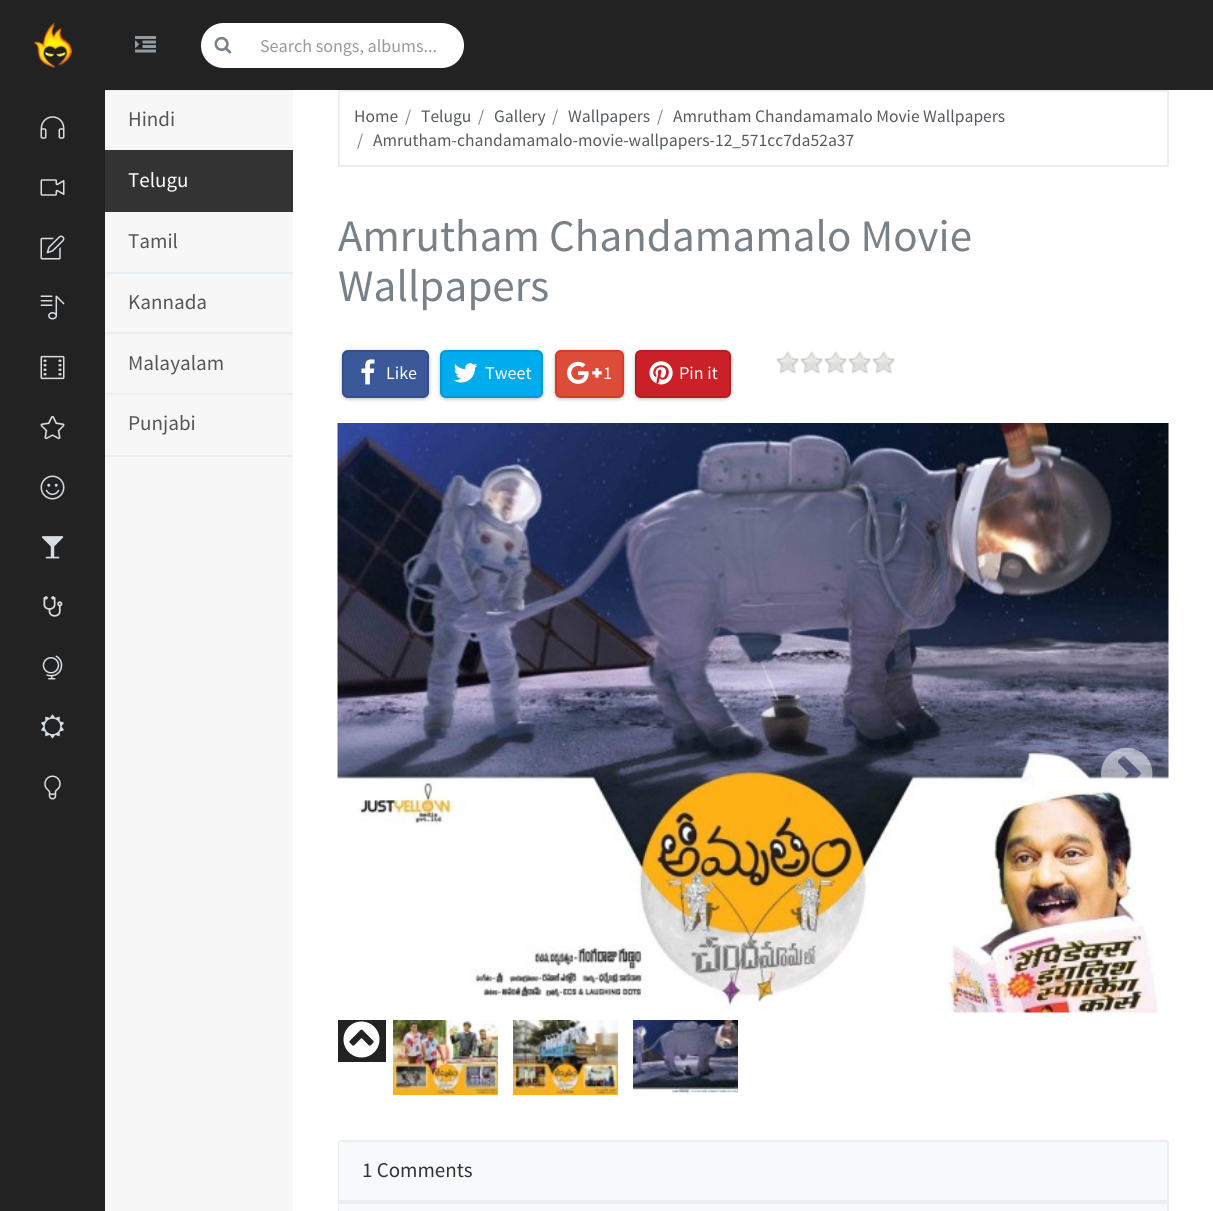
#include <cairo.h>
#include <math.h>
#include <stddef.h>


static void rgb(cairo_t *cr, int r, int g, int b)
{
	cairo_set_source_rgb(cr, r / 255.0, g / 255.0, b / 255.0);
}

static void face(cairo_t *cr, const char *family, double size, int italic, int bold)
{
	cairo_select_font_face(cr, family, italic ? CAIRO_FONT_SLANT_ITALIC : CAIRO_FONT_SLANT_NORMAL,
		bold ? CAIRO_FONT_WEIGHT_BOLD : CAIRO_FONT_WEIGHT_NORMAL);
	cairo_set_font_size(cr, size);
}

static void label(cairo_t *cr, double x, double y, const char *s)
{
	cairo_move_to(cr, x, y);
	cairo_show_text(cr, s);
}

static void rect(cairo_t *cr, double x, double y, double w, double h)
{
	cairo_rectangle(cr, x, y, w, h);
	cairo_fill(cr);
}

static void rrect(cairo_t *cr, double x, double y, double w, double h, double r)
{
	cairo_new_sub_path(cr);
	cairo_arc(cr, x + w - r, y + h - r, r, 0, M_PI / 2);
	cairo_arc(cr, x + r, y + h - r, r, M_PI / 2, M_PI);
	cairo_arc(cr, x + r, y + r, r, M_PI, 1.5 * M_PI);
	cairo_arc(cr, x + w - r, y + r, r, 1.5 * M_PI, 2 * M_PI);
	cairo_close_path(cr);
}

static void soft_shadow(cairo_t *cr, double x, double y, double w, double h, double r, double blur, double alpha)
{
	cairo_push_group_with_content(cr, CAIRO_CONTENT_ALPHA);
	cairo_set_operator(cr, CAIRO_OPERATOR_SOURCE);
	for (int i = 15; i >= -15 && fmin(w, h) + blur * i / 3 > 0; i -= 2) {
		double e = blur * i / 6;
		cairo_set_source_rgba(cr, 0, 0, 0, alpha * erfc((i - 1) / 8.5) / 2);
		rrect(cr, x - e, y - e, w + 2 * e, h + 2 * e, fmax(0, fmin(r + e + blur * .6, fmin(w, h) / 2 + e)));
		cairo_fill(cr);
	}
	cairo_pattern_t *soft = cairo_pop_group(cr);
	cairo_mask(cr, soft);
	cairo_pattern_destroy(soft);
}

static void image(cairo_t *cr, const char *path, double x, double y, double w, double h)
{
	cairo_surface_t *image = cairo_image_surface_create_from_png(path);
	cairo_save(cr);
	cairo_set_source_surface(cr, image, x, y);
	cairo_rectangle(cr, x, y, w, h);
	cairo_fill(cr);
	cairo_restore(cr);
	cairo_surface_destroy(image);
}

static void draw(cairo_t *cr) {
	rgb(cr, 255, 255, 255);
	cairo_paint(cr);
	rgb(cr, 34, 34, 34);
	rect(cr, 0, 0, 1213, 90);
	image(cr, "image0.png", 33, 22, 39, 46);
	image(cr, "image1.png", 135, 36, 21, 17);
	rgb(cr, 255, 255, 255);
	cairo_new_path(cr);
	cairo_move_to(cr, 223.5, 23);
	cairo_line_to(cr, 246, 23);
	cairo_line_to(cr, 246, 68);
	cairo_line_to(cr, 223.5, 68);
	cairo_curve_to(cr, 211, 68, 201, 58, 201, 45.5);
	cairo_curve_to(cr, 201, 33, 211, 23, 223.5, 23);
	cairo_close_path(cr);
	cairo_fill(cr);
	image(cr, "image2.png", 214, 36, 18, 18);
	cairo_new_path(cr);
	cairo_move_to(cr, 245, 23);
	cairo_line_to(cr, 441.5, 23);
	cairo_curve_to(cr, 454, 23, 464, 33, 464, 45.5);
	cairo_curve_to(cr, 464, 58, 454, 68, 441.5, 68);
	cairo_line_to(cr, 245, 68);
	cairo_close_path(cr);
	cairo_fill(cr);
	face(cr, "Source Sans Pro", 18, 0, 0);
	rgb(cr, 153, 153, 153);
	label(cr, 260, 52, "Search songs, albums...");
	rgb(cr, 34, 34, 34);
	rect(cr, 0, 90, 105, 1121);
	image(cr, "image3.png", 40, 116, 25, 23);
	image(cr, "image4.png", 40, 179, 25, 17);
	image(cr, "image5.png", 40, 235, 25, 25);
	image(cr, "image6.png", 40, 295, 25, 25);
	image(cr, "image7.png", 40, 355, 25, 25);
	image(cr, "image8.png", 40, 415, 25, 25);
	image(cr, "image9.png", 40, 475, 25, 25);
	image(cr, "image10.png", 41, 536, 23, 23);
	image(cr, "image11.png", 43, 596, 20, 21);
	image(cr, "image12.png", 42, 655, 21, 25);
	image(cr, "image13.png", 41, 714, 23, 25);
	image(cr, "image14.png", 44, 775, 17, 25);
	rgb(cr, 247, 247, 247);
	rect(cr, 105, 91, 188, 1120);
	rgb(cr, 234, 238, 241);
	rect(cr, 105, 90, 188, 1);
	face(cr, "Source Sans Pro", 21, 0, 0);
	rgb(cr, 85, 85, 85);
	label(cr, 128, 126, "Hindi");
	rgb(cr, 51, 51, 51);
	rect(cr, 105, 150, 188, 62);
	rgb(cr, 255, 255, 255);
	label(cr, 128, 187, "Telugu");
	rgb(cr, 234, 238, 241);
	rect(cr, 105, 272, 188, 2);
	rgb(cr, 85, 85, 85);
	label(cr, 128, 248, "Tamil");
	rgb(cr, 234, 238, 241);
	rect(cr, 105, 332, 188, 2);
	rgb(cr, 85, 85, 85);
	label(cr, 128, 309, "Kannada");
	rgb(cr, 234, 238, 241);
	rect(cr, 105, 393, 188, 2);
	rgb(cr, 85, 85, 85);
	label(cr, 128, 370, "Malayalam");
	rgb(cr, 234, 238, 241);
	rect(cr, 105, 455, 188, 2);
	rgb(cr, 85, 85, 85);
	label(cr, 128, 430, "Punjabi");
	cairo_rectangle(cr, 339, 91, 829, 75);
	rgb(cr, 234, 238, 241);
	cairo_stroke(cr);
	face(cr, "Source Sans Pro", 17.5, 0, 0);
	rgb(cr, 84, 90, 95);
	label(cr, 354, 122, "Home");
	rgb(cr, 120, 129, 136);
	label(cr, 405, 122, "/");
	rgb(cr, 84, 90, 95);
	label(cr, 421, 122, "Telugu");
	rgb(cr, 120, 129, 136);
	label(cr, 478, 122, "/");
	rgb(cr, 84, 90, 95);
	label(cr, 494, 122, "Gallery");
	rgb(cr, 120, 129, 136);
	label(cr, 552, 122, "/");
	rgb(cr, 84, 90, 95);
	label(cr, 568, 122, "Wallpapers");
	rgb(cr, 120, 129, 136);
	label(cr, 657, 122, "/");
	rgb(cr, 84, 90, 95);
	label(cr, 673, 122, "Amrutham Chandamamalo Movie Wallpapers");
	rgb(cr, 120, 129, 136);
	label(cr, 357, 146, "/");
	rgb(cr, 84, 90, 95);
	label(cr, 373, 146, "Amrutham-chandamamalo-movie-wallpapers-12_571cc7da52a37");
	face(cr, "Source Sans Pro", 45, 0, 0);
	rgb(cr, 120, 129, 136);
	label(cr, 338, 251, "Amrutham Chandamamalo Movie");
	label(cr, 338, 301, "Wallpapers");
	rgb(cr, 0, 0, 0);
	soft_shadow(cr, 342, 351, 87, 48, 6, 2, 0.15);
	soft_shadow(cr, 342, 351, 87, 48, 6, 2, 0.15);
	rgb(cr, 59, 89, 152);
	rrect(cr, 343, 351, 85, 46, 5);
	cairo_fill_preserve(cr);
	rgb(cr, 52, 78, 134);
	cairo_stroke(cr);
	image(cr, "image15.png", 361, 359, 14, 26);
	face(cr, "Source Sans Pro", 18, 0, 0);
	rgb(cr, 255, 255, 255);
	label(cr, 386, 379, "Like");
	rgb(cr, 0, 0, 0);
	soft_shadow(cr, 440, 351, 103, 48, 6, 2, 0.15);
	soft_shadow(cr, 440, 351, 103, 48, 6, 2, 0.15);
	rgb(cr, 0, 172, 237);
	rrect(cr, 441, 351, 101, 46, 5);
	cairo_fill_preserve(cr);
	rgb(cr, 0, 153, 211);
	cairo_stroke(cr);
	image(cr, "image16.png", 453, 363, 25, 20);
	rgb(cr, 255, 255, 255);
	label(cr, 485, 379, "Tweet");
	rgb(cr, 0, 0, 0);
	soft_shadow(cr, 555, 351, 69, 48, 6, 2, 0.15);
	soft_shadow(cr, 555, 351, 69, 48, 6, 2, 0.15);
	rgb(cr, 221, 75, 57);
	rrect(cr, 556, 351, 67, 46, 5);
	cairo_fill_preserve(cr);
	rgb(cr, 215, 57, 37);
	cairo_stroke(cr);
	image(cr, "image17.png", 567, 361, 35, 23);
	rgb(cr, 255, 255, 255);
	label(cr, 603, 379, "1");
	rgb(cr, 0, 0, 0);
	soft_shadow(cr, 635, 351, 96, 48, 6, 2, 0.15);
	soft_shadow(cr, 635, 351, 96, 48, 6, 2, 0.15);
	rgb(cr, 203, 32, 39);
	rrect(cr, 636, 351, 94, 46, 5);
	cairo_fill_preserve(cr);
	rgb(cr, 181, 29, 35);
	cairo_stroke(cr);
	image(cr, "image18.png", 649, 361, 24, 24);
	rgb(cr, 255, 255, 255);
	label(cr, 679, 379, "Pin it");
	image(cr, "image19.png", 776, 351, 24, 23);
	image(cr, "image19.png", 800, 351, 24, 23);
	image(cr, "image19.png", 824, 351, 24, 23);
	image(cr, "image19.png", 848, 351, 24, 23);
	image(cr, "image19.png", 872, 351, 24, 23);
	image(cr, "image20.png", 337, 423, 832, 590);
	image(cr, "image21.png", 1101, 747, 52, 51);
	rgb(cr, 34, 34, 34);
	rect(cr, 338, 1020, 48, 42);
	image(cr, "image22.png", 343, 1021, 37, 37);
	image(cr, "image23.png", 393, 1020, 105, 75);
	image(cr, "image24.png", 513, 1020, 105, 75);
	image(cr, "image25.png", 633, 1020, 105, 75);
	rrect(cr, 339, 1141, 829, 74, 2);
	rgb(cr, 234, 238, 241);
	cairo_stroke(cr);
	rgb(cr, 247, 250, 250);
	cairo_new_path(cr);
	cairo_move_to(cr, 342, 1142);
	cairo_line_to(cr, 1164, 1142);
	cairo_curve_to(cr, 1165.5, 1142, 1167, 1143.5, 1167, 1145);
	cairo_line_to(cr, 1167, 1202);
	cairo_line_to(cr, 339, 1202);
	cairo_line_to(cr, 339, 1145);
	cairo_curve_to(cr, 339, 1143.5, 340.5, 1142, 342, 1142);
	cairo_close_path(cr);
	cairo_fill(cr);
	rgb(cr, 234, 238, 241);
	rect(cr, 339, 1200, 828, 4);
	face(cr, "Source Sans Pro", 21, 0, 0);
	rgb(cr, 51, 51, 51);
	label(cr, 362, 1177, "1 Comments");
	rgb(cr, 247, 250, 250);
	rect(cr, 339, 1204, 828, 7);
}

int main(void) {
	cairo_surface_t *surface = cairo_image_surface_create(CAIRO_FORMAT_RGB24, 1213, 1211);
	cairo_t *cr = cairo_create(surface);
	cairo_font_options_t *options = cairo_font_options_create();
	cairo_font_options_set_hint_metrics(options, CAIRO_HINT_METRICS_OFF);
	cairo_font_options_set_hint_style(options, CAIRO_HINT_STYLE_NONE);
	cairo_set_font_options(cr, options);
	cairo_set_miter_limit(cr, 4);
	draw(cr);
	cairo_surface_write_to_png(surface, "render.png");
	cairo_font_options_destroy(options);
	cairo_destroy(cr);
	cairo_surface_destroy(surface);
	return 0;
}
